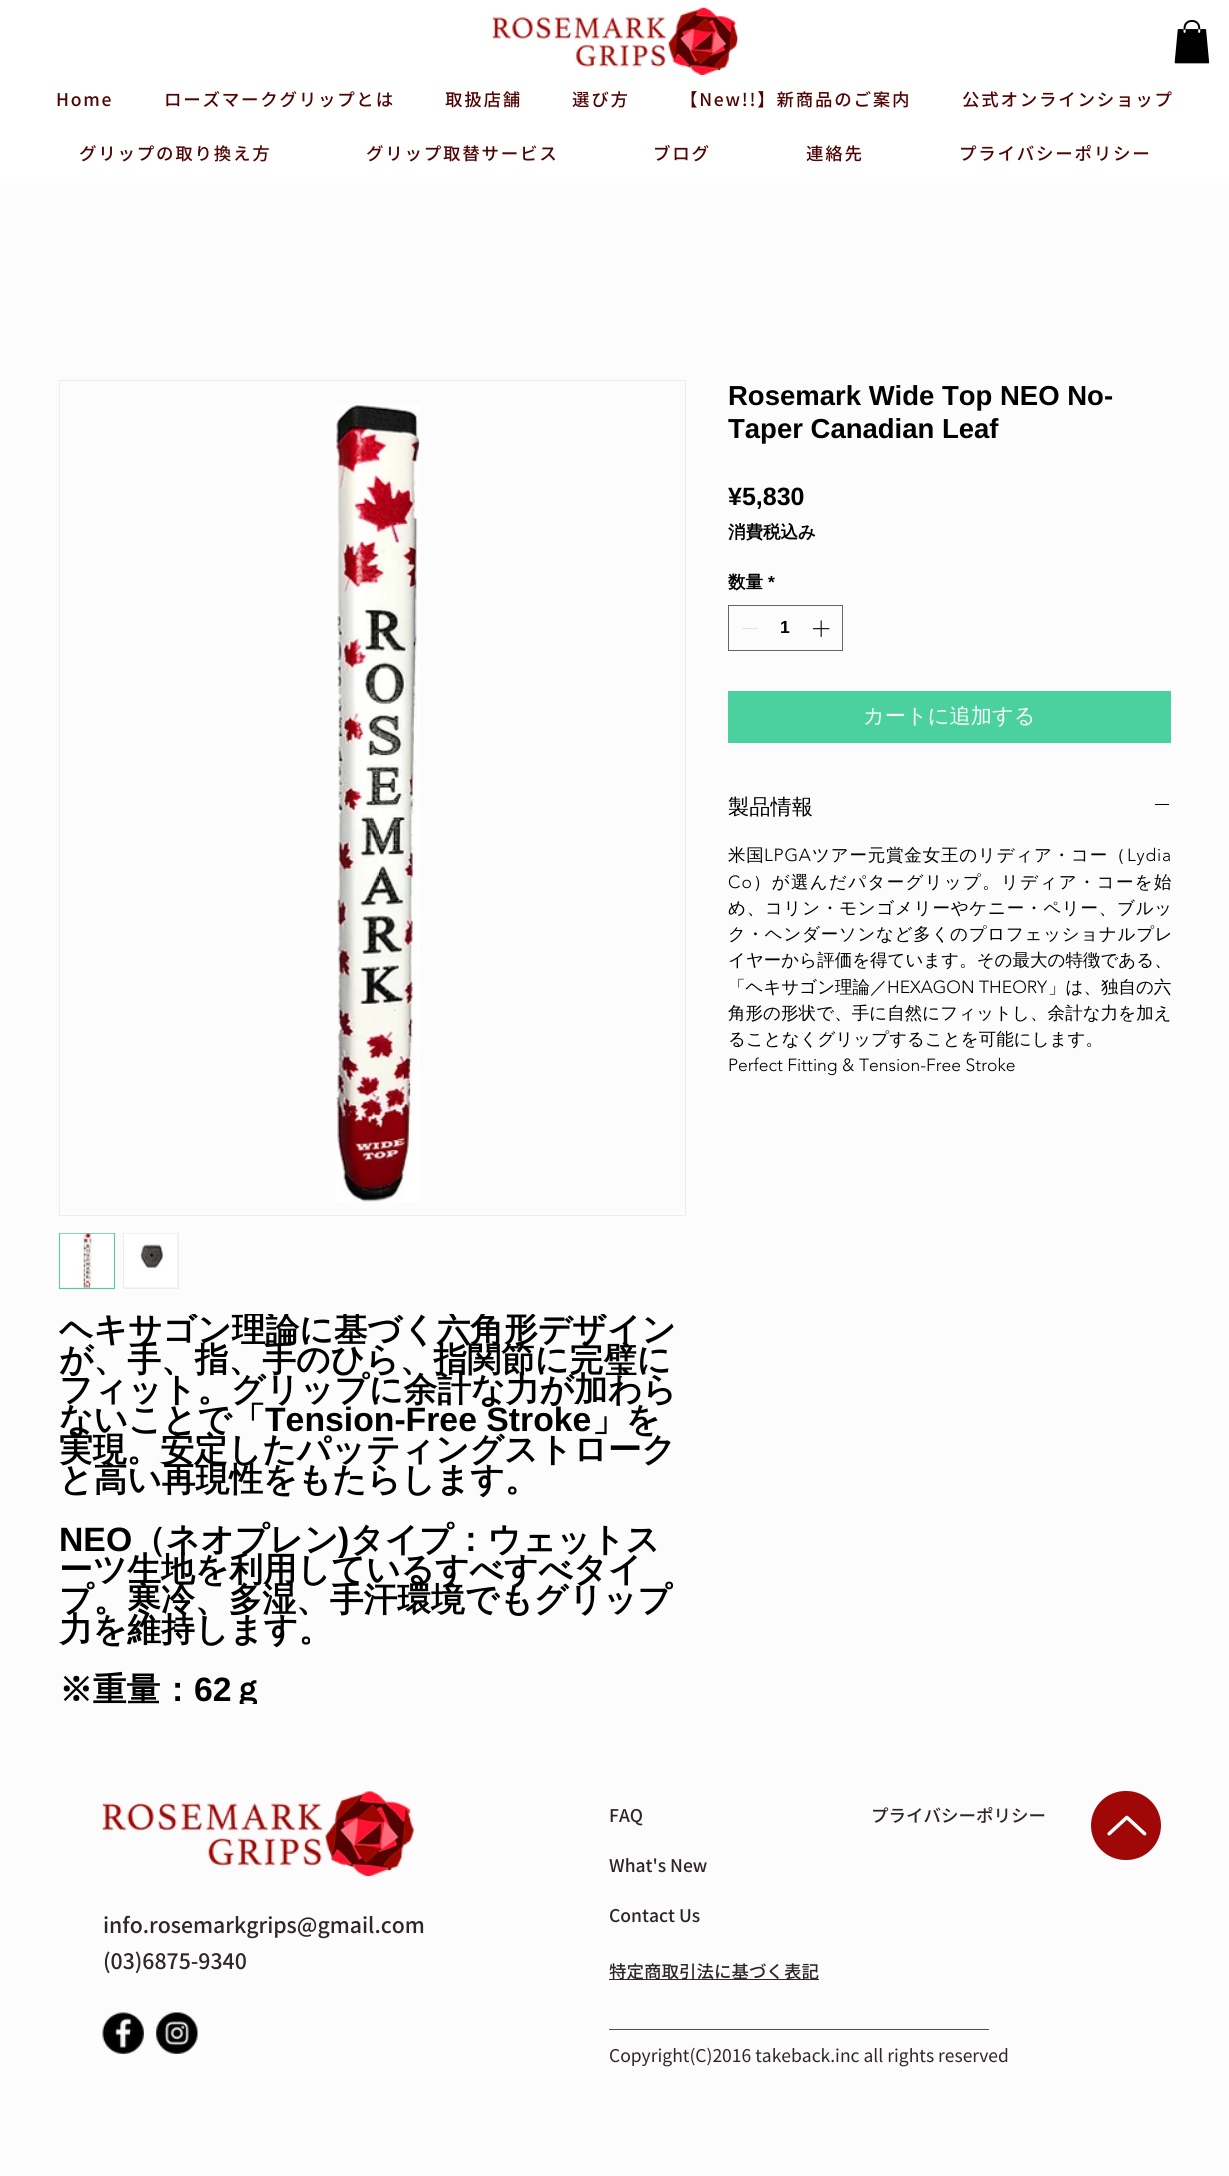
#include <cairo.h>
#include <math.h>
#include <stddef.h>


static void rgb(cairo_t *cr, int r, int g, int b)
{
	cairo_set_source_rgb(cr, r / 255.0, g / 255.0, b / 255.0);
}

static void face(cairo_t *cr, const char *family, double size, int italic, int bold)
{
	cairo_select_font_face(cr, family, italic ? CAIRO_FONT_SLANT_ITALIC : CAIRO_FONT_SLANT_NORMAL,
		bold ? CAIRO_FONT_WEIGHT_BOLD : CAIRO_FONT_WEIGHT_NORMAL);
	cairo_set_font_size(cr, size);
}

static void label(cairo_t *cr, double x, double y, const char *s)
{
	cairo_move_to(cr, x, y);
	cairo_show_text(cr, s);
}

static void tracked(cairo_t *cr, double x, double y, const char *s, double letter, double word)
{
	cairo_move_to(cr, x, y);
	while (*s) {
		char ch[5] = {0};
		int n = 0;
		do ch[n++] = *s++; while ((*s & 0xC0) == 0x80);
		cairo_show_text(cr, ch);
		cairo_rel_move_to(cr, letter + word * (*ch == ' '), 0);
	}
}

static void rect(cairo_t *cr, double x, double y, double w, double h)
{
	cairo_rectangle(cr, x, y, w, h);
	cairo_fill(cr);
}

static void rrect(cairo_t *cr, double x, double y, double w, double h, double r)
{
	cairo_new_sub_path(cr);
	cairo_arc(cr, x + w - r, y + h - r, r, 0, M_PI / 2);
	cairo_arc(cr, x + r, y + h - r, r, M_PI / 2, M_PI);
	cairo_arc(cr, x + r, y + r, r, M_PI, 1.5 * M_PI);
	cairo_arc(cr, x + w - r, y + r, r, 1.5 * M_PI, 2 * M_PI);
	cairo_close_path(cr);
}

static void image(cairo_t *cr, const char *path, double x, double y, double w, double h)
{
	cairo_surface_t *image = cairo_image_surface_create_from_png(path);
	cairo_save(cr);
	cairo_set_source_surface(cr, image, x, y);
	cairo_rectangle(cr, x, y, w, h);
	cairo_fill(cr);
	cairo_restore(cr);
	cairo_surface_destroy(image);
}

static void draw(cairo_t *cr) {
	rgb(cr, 252, 252, 252);
	cairo_paint(cr);
	rgb(cr, 255, 255, 255);
	rect(cr, 0, 0, 1229, 183);
	image(cr, "image0.png", 492, 7, 246, 68);
	image(cr, "image1.png", 1174, 20, 36, 44);
	face(cr, "Noto Sans CJK JP Medium", 17.5, 0, 0);
	rgb(cr, 80, 4, 4);
	tracked(cr, 56, 106, "Home", 1.75, 0);
	tracked(cr, 164, 106, "ローズマークグリップとは", 1.75, 0);
	tracked(cr, 445, 106, "取扱店舗", 1.75, 0);
	tracked(cr, 572, 106, "選び方", 1.75, 0);
	tracked(cr, 680, 106, "【New!!】新商品のご案内", 1.75, 0);
	tracked(cr, 962, 106, "公式オンラインショップ", 1.75, 0);
	tracked(cr, 79, 160, "グリップの取り換え方", 1.75, 0);
	tracked(cr, 366, 160, "グリップ取替サービス", 1.75, 0);
	tracked(cr, 653, 160, "ブログ", 1.75, 0);
	tracked(cr, 806, 160, "連絡先", 1.75, 0);
	tracked(cr, 959, 160, "プライバシーポリシー", 1.75, 0);
	face(cr, "Liberation Sans", 27.5, 0, 1);
	rgb(cr, 0, 0, 0);
	label(cr, 728, 405, "Rosemark Wide Top NEO No-");
	label(cr, 728, 438, "Taper Canadian Leaf");
	face(cr, "Liberation Sans", 25, 0, 1);
	label(cr, 728, 505, "¥5,830");
	face(cr, "WenQuanYi Zen Hei", 17.5, 0, 1);
	label(cr, 728, 538, "消費税込み");
	label(cr, 728, 588, "数量");
	face(cr, "Liberation Sans", 17.5, 0, 1);
	label(cr, 768, 588, "*");
	cairo_rectangle(cr, 728.5, 605.5, 114, 45);
	rgb(cr, 101, 101, 101);
	cairo_set_line_width(cr, 1);
	cairo_stroke(cr);
	rgb(cr, 226, 226, 226);
	rect(cr, 742, 628, 16, 1);
	rgb(cr, 0, 0, 0);
	label(cr, 780, 633, "1");
	image(cr, "image2.png", 812, 620, 18, 17);
	rgb(cr, 75, 209, 160);
	rect(cr, 728, 691, 443, 52);
	face(cr, "WenQuanYi Zen Hei Medium", 21.25, 0, 0);
	rgb(cr, 252, 252, 252);
	label(cr, 863, 723, "カートに追加する");
	rgb(cr, 0, 0, 0);
	label(cr, 728, 814, "製品情報");
	rect(cr, 1155, 804, 14, 1);
	face(cr, "WenQuanYi Zen Hei Medium", 17.5, 0, 0);
	tracked(cr, 728, 861, "米国", 0.8, 0);
	face(cr, "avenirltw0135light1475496 Light", 17.5, 0, 0);
	tracked(cr, 764, 861, "LPGA", 0.8, 0);
	face(cr, "WenQuanYi Zen Hei Medium", 17.5, 0, 0);
	tracked(cr, 812, 861, "ツアー元賞金女王のリディア・コー（", 0.8, 0);
	face(cr, "avenirltw0135light1475496 Light", 17.5, 0, 0);
	tracked(cr, 1127, 861, "Lydia", 0.8, 0);
	tracked(cr, 728, 888, "Co", 1.3, 0);
	face(cr, "WenQuanYi Zen Hei Medium", 17.5, 0, 0);
	tracked(cr, 753, 888, "）が選んだパターグリップ。リディア・コーを始", 1.3, 0);
	tracked(cr, 728, 914, "め、コリン・モンゴメリーやケニー・ペリー、ブルッ", 0.75, 0);
	tracked(cr, 728, 940, "ク・ヘンダーソンなど多くのプロフェッショナルプレ", 0.7, 0);
	label(cr, 728, 966, "イヤーから評価を得ています。その最大の特徴である、");
	label(cr, 728, 993, "「ヘキサゴン理論／");
	face(cr, "avenirltw0135light1475496 Light", 17.5, 0, 0);
	label(cr, 887, 993, "HEXAGON THEORY");
	face(cr, "WenQuanYi Zen Hei Medium", 17.5, 0, 0);
	label(cr, 1048, 993, "」は、独自の六");
	tracked(cr, 728, 1019, "角形の形状で、手に自然にフィットし、余計な力を加え", 0.05, 0);
	label(cr, 728, 1045, "ることなくグリップすることを可能にします。");
	face(cr, "avenirltw0135light1475496 Light", 17.5, 0, 0);
	label(cr, 728, 1071, "Perfect Fitting & Tension-Free Stroke");
	cairo_rectangle(cr, 59.5, 380.5, 626, 835);
	rgb(cr, 237, 237, 237);
	cairo_stroke(cr);
	image(cr, "image3.png", 336, 405, 84, 797);
	cairo_rectangle(cr, 59.5, 1233.5, 55, 55);
	cairo_fill_preserve(cr);
	rgb(cr, 75, 209, 160);
	cairo_stroke(cr);
	image(cr, "image4.png", 60, 1233, 54, 55);
	rgb(cr, 237, 237, 237);
	rect(cr, 123, 1233, 56, 56);
	image(cr, "image5.png", 124, 1233, 54, 55);
	cairo_save(cr);
	cairo_rectangle(cr, 59, 1314, 625, 390);
	cairo_clip(cr);
	face(cr, "WenQuanYi Zen Hei", 33.75, 0, 1);
	rgb(cr, 0, 0, 0);
	label(cr, 59, 1341, "ヘキサゴン理論に基づく六角形デザイン");
	cairo_restore(cr);
	face(cr, "WenQuanYi Zen Hei", 33.75, 0, 1);
	rgb(cr, 0, 0, 0);
	label(cr, 59, 1371, "が、手、指、手のひら、指関節に完璧に");
	label(cr, 59, 1401, "フィット。グリップに余計な力が加わら");
	label(cr, 59, 1431, "ないことで「");
	face(cr, "Liberation Sans", 33.75, 0, 1);
	label(cr, 265, 1431, "Tension-Free Stroke");
	face(cr, "WenQuanYi Zen Hei", 33.75, 0, 1);
	label(cr, 592, 1431, "」を");
	label(cr, 59, 1461, "実現。安定したパッティングストローク");
	label(cr, 59, 1491, "と高い再現性をもたらします。");
	face(cr, "Liberation Sans", 33.75, 0, 1);
	label(cr, 59, 1551, "NEO");
	face(cr, "WenQuanYi Zen Hei", 33.75, 0, 1);
	label(cr, 132, 1551, "（ネオプレン");
	face(cr, "Liberation Sans", 33.75, 0, 1);
	label(cr, 338, 1551, ")");
	face(cr, "WenQuanYi Zen Hei", 33.75, 0, 1);
	label(cr, 350, 1551, "タイプ：ウェットス");
	label(cr, 59, 1581, "ーツ生地を利用しているすべすべタイ");
	label(cr, 59, 1611, "プ。寒冷、多湿、手汗環境でもグリップ");
	label(cr, 59, 1641, "力を維持します。");
	label(cr, 59, 1701, "※重量：");
	face(cr, "Liberation Sans", 33.75, 0, 1);
	label(cr, 194, 1701, "62");
	cairo_save(cr);
	cairo_rectangle(cr, 59, 1314, 625, 390);
	cairo_clip(cr);
	face(cr, "WenQuanYi Zen Hei", 33.75, 0, 1);
	label(cr, 231, 1701, "ｇ");
	cairo_restore(cr);
	image(cr, "image6.png", 102, 1791, 312, 86);
	face(cr, "Noto Sans CJK JP Medium", 17.5, 0, 0);
	rgb(cr, 46, 37, 37);
	label(cr, 609, 1822, "FAQ");
	label(cr, 871, 1822, "プライバシーポリシー");
	rgb(cr, 160, 8, 8);
	rrect(cr, 1091, 1791, 70, 69, 34.5);
	cairo_fill(cr);
	image(cr, "image7.png", 1107, 1815, 40, 21);
	rgb(cr, 46, 37, 37);
	label(cr, 609, 1872, "What's New");
	face(cr, "Noto Sans CJK JP Medium", 21.25, 0, 0);
	label(cr, 103, 1933, "info.rosemarkgrips@gmail.com");
	face(cr, "Noto Sans CJK JP Medium", 17.5, 0, 0);
	label(cr, 609, 1922, "Contact Us");
	face(cr, "Noto Sans CJK JP Medium", 21.25, 0, 0);
	label(cr, 103, 1969, "(03)6875-9340");
	rect(cr, 609, 1979, 210, 1);
	face(cr, "Noto Sans CJK JP Medium", 17.5, 0, 0);
	label(cr, 609, 1978, "特定商取引法に基づく表記");
	image(cr, "image8.png", 102, 2012, 42, 42);
	image(cr, "image9.png", 156, 2012, 42, 42);
	rgb(cr, 81, 77, 77);
	rect(cr, 609, 2029, 380, 1);
	face(cr, "Noto Sans CJK JP", 17.5, 0, 0);
	rgb(cr, 46, 37, 37);
	label(cr, 609, 2062, "Copyright(C)2016 takeback.inc all rights reserved");
}

int main(void) {
	cairo_surface_t *surface = cairo_image_surface_create(CAIRO_FORMAT_RGB24, 1229, 2176);
	cairo_t *cr = cairo_create(surface);
	cairo_font_options_t *options = cairo_font_options_create();
	cairo_font_options_set_hint_metrics(options, CAIRO_HINT_METRICS_OFF);
	cairo_font_options_set_hint_style(options, CAIRO_HINT_STYLE_NONE);
	cairo_set_font_options(cr, options);
	cairo_set_miter_limit(cr, 4);
	draw(cr);
	cairo_surface_write_to_png(surface, "render.png");
	cairo_font_options_destroy(options);
	cairo_destroy(cr);
	cairo_surface_destroy(surface);
	return 0;
}
